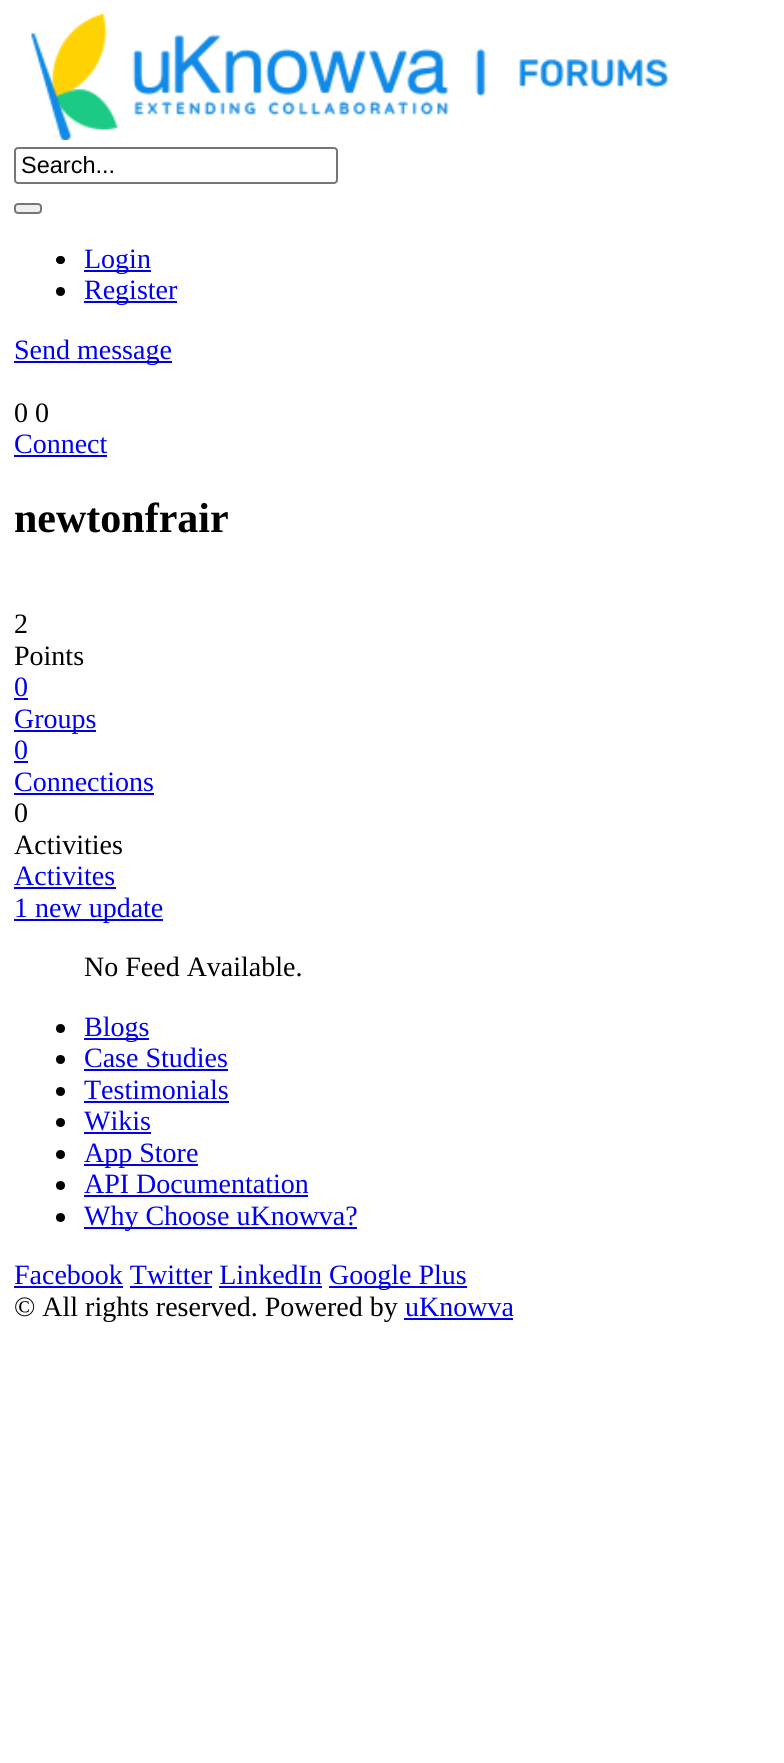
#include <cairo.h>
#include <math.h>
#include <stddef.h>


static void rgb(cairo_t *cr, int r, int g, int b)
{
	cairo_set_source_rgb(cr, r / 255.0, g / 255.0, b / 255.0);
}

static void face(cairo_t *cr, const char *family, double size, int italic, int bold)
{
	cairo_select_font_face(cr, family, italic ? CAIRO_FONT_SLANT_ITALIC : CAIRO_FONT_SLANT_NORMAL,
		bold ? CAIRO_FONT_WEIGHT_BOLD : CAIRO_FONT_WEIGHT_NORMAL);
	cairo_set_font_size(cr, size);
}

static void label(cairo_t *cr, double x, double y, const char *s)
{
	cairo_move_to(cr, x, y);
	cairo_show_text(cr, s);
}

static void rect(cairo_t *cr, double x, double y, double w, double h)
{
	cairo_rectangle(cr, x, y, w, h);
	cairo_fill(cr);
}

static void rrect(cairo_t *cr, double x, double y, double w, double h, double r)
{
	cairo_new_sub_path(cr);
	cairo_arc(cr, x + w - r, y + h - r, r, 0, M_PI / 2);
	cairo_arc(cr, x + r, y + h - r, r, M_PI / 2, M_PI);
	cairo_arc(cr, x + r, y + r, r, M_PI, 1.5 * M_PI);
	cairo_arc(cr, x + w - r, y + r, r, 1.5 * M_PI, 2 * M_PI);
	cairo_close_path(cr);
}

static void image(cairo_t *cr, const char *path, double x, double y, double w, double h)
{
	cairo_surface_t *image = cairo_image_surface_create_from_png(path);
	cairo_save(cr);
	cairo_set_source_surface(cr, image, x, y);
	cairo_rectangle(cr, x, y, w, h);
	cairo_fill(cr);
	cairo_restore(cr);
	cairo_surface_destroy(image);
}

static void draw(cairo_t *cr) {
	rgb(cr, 255, 255, 255);
	cairo_paint(cr);
	image(cr, "image0.png", 31, 14, 638, 126);
	rrect(cr, 15, 148, 322, 35, 3);
	rgb(cr, 118, 118, 118);
	cairo_stroke(cr);
	face(cr, "Liberation Sans", 23.5, 0, 0);
	rgb(cr, 0, 0, 0);
	label(cr, 21, 173, "Search...");
	rgb(cr, 239, 239, 239);
	rrect(cr, 15, 204, 26, 9, 3);
	cairo_fill_preserve(cr);
	rgb(cr, 118, 118, 118);
	cairo_stroke(cr);
	rgb(cr, 0, 0, 0);
	rrect(cr, 56, 256, 9, 8, 4);
	cairo_fill(cr);
	rgb(cr, 0, 0, 238);
	rect(cr, 84, 270, 67, 2);
	face(cr, "Liberation Serif", 28, 0, 0);
	label(cr, 84, 268, "Login");
	rgb(cr, 0, 0, 0);
	cairo_new_path(cr);
	cairo_arc(cr, 60.5, 291.5, 4.5, 0, 2 * M_PI);
	cairo_fill(cr);
	rgb(cr, 0, 0, 238);
	rect(cr, 84, 301, 93, 2);
	label(cr, 84, 299, "Register");
	rect(cr, 14, 361, 158, 2);
	label(cr, 14, 359, "Send message");
	rgb(cr, 0, 0, 0);
	label(cr, 14, 422, "0 0");
	rgb(cr, 0, 0, 238);
	label(cr, 14, 453, "Connect");
	rect(cr, 14, 455, 93, 2);
	face(cr, "Liberation Serif", 42, 0, 1);
	rgb(cr, 0, 0, 0);
	label(cr, 14, 532, "newtonfrair");
	face(cr, "Liberation Serif", 28, 0, 0);
	label(cr, 14, 633, "2");
	label(cr, 14, 665, "Points");
	rgb(cr, 0, 0, 238);
	label(cr, 14, 696, "0");
	rect(cr, 14, 698, 14, 2);
	rect(cr, 14, 730, 82, 2);
	label(cr, 14, 728, "Groups");
	label(cr, 14, 759, "0");
	rect(cr, 14, 761, 14, 2);
	label(cr, 14, 791, "Connections");
	rect(cr, 14, 793, 140, 2);
	rgb(cr, 0, 0, 0);
	label(cr, 14, 822, "0");
	label(cr, 14, 854, "Activities");
	rgb(cr, 0, 0, 238);
	label(cr, 14, 885, "Activites");
	rect(cr, 14, 887, 102, 2);
	rect(cr, 14, 919, 149, 2);
	label(cr, 14, 917, "1 new update");
	rgb(cr, 0, 0, 0);
	label(cr, 84, 976, "No Feed Available.");
	cairo_new_path(cr);
	cairo_arc(cr, 60.5, 1028.5, 4.5, 0, 2 * M_PI);
	cairo_fill(cr);
	rgb(cr, 0, 0, 238);
	rect(cr, 84, 1038, 65, 2);
	label(cr, 84, 1036, "Blogs");
	rgb(cr, 0, 0, 0);
	cairo_new_path(cr);
	cairo_arc(cr, 60.5, 1059.5, 4.5, 0, 2 * M_PI);
	cairo_fill(cr);
	rgb(cr, 0, 0, 238);
	label(cr, 84, 1067, "Case Studies");
	rect(cr, 84, 1069, 144, 2);
	rgb(cr, 0, 0, 0);
	cairo_new_path(cr);
	cairo_arc(cr, 60.5, 1091.5, 4.5, 0, 2 * M_PI);
	cairo_fill(cr);
	rgb(cr, 0, 0, 238);
	label(cr, 84, 1099, "Testimonials");
	rect(cr, 84, 1101, 145, 2);
	rgb(cr, 0, 0, 0);
	cairo_new_path(cr);
	cairo_arc(cr, 60.5, 1122.5, 4.5, 0, 2 * M_PI);
	cairo_fill(cr);
	rgb(cr, 0, 0, 238);
	label(cr, 84, 1130, "Wikis");
	rect(cr, 84, 1132, 67, 2);
	rgb(cr, 0, 0, 0);
	cairo_new_path(cr);
	cairo_arc(cr, 60.5, 1154.5, 4.5, 0, 2 * M_PI);
	cairo_fill(cr);
	rgb(cr, 0, 0, 238);
	rect(cr, 84, 1164, 114, 2);
	label(cr, 84, 1162, "App Store");
	rgb(cr, 0, 0, 0);
	cairo_new_path(cr);
	cairo_arc(cr, 60.5, 1185.5, 4.5, 0, 2 * M_PI);
	cairo_fill(cr);
	rgb(cr, 0, 0, 238);
	label(cr, 84, 1193, "API Documentation");
	rect(cr, 84, 1195, 224, 2);
	rgb(cr, 0, 0, 0);
	cairo_new_path(cr);
	cairo_arc(cr, 60.5, 1217.5, 4.5, 0, 2 * M_PI);
	cairo_fill(cr);
	rgb(cr, 0, 0, 238);
	rect(cr, 84, 1227, 273, 2);
	label(cr, 84, 1225, "Why Choose uKnowva?");
	label(cr, 14, 1284, "Facebook Twitter LinkedIn");
	rect(cr, 14, 1286, 109, 2);
	rect(cr, 329, 1286, 138, 2);
	label(cr, 329, 1284, "Google Plus");
	rect(cr, 130, 1286, 82, 2);
	rect(cr, 219, 1286, 103, 2);
	rgb(cr, 0, 0, 0);
	label(cr, 14, 1316, "© All rights reserved. Powered by");
	rgb(cr, 0, 0, 238);
	label(cr, 405, 1316, "uKnowva");
	rect(cr, 404, 1318, 109, 2);
}

int main(void) {
	cairo_surface_t *surface = cairo_image_surface_create(CAIRO_FORMAT_RGB24, 784, 1763);
	cairo_t *cr = cairo_create(surface);
	cairo_font_options_t *options = cairo_font_options_create();
	cairo_font_options_set_hint_metrics(options, CAIRO_HINT_METRICS_OFF);
	cairo_font_options_set_hint_style(options, CAIRO_HINT_STYLE_NONE);
	cairo_set_font_options(cr, options);
	cairo_set_miter_limit(cr, 4);
	draw(cr);
	cairo_surface_write_to_png(surface, "render.png");
	cairo_font_options_destroy(options);
	cairo_destroy(cr);
	cairo_surface_destroy(surface);
	return 0;
}
